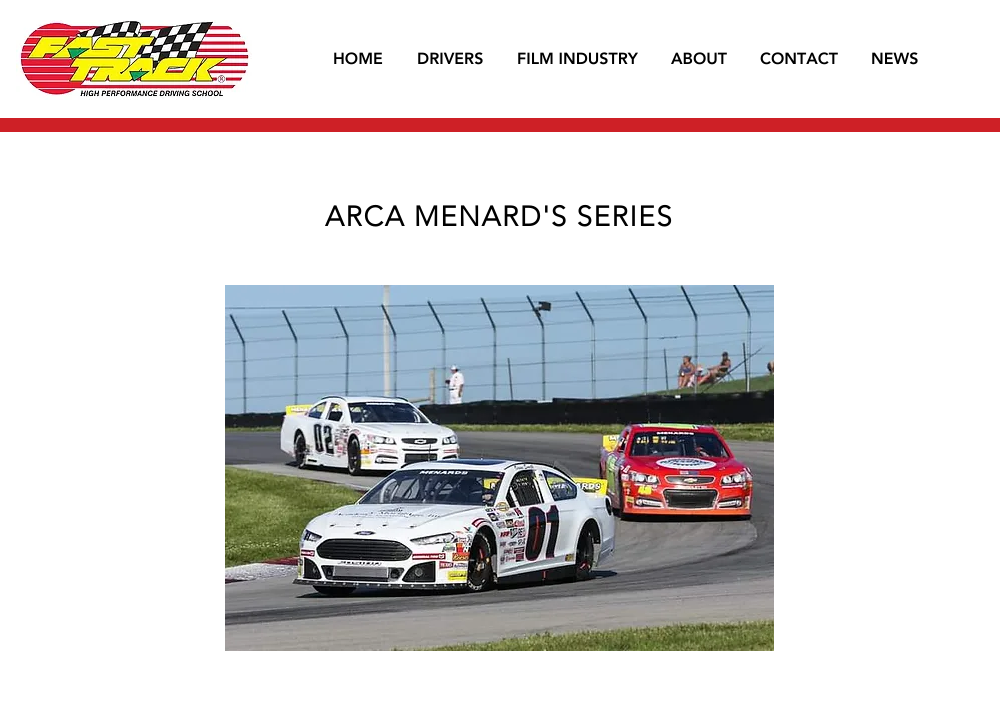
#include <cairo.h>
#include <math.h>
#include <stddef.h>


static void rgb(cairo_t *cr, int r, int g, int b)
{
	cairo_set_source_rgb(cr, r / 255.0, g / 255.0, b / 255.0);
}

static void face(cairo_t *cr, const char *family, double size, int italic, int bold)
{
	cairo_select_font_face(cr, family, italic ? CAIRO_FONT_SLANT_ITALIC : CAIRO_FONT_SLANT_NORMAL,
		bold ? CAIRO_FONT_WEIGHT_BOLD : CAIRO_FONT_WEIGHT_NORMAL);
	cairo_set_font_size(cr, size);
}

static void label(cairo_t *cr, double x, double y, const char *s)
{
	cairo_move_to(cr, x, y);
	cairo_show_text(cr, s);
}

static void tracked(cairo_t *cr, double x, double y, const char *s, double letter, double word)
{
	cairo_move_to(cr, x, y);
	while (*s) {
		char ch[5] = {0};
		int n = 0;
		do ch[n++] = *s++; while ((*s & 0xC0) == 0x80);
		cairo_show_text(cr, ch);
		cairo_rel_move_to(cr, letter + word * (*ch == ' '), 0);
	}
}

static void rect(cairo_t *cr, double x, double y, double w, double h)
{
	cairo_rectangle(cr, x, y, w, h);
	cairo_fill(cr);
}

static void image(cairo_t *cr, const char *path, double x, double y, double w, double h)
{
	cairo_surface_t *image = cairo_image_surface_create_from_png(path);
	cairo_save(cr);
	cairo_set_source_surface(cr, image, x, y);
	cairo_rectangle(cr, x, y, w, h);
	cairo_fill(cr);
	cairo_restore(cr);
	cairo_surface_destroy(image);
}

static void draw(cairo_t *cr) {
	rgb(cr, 255, 255, 255);
	cairo_paint(cr);
	image(cr, "image0.png", 16, 20, 236, 80);
	face(cr, "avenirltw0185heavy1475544 Black", 16, 0, 0);
	rgb(cr, 0, 0, 0);
	label(cr, 333, 64, "HOME");
	label(cr, 417, 64, "DRIVERS");
	label(cr, 517, 64, "FILM INDUSTRY");
	label(cr, 671, 64, "ABOUT");
	label(cr, 760, 64, "CONTACT");
	label(cr, 871, 64, "NEWS");
	rgb(cr, 206, 32, 38);
	rect(cr, 0, 118, 1000, 14);
	face(cr, "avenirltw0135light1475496", 28, 0, 1);
	rgb(cr, 0, 0, 0);
	tracked(cr, 325, 226, "ARCA MENARD'S SERIES", 1.4, 0);
	image(cr, "image1.png", 225, 285, 549, 366);
}

int main(void) {
	cairo_surface_t *surface = cairo_image_surface_create(CAIRO_FORMAT_RGB24, 1000, 714);
	cairo_t *cr = cairo_create(surface);
	cairo_font_options_t *options = cairo_font_options_create();
	cairo_font_options_set_hint_metrics(options, CAIRO_HINT_METRICS_OFF);
	cairo_font_options_set_hint_style(options, CAIRO_HINT_STYLE_NONE);
	cairo_set_font_options(cr, options);
	cairo_set_miter_limit(cr, 4);
	draw(cr);
	cairo_surface_write_to_png(surface, "render.png");
	cairo_font_options_destroy(options);
	cairo_destroy(cr);
	cairo_surface_destroy(surface);
	return 0;
}
